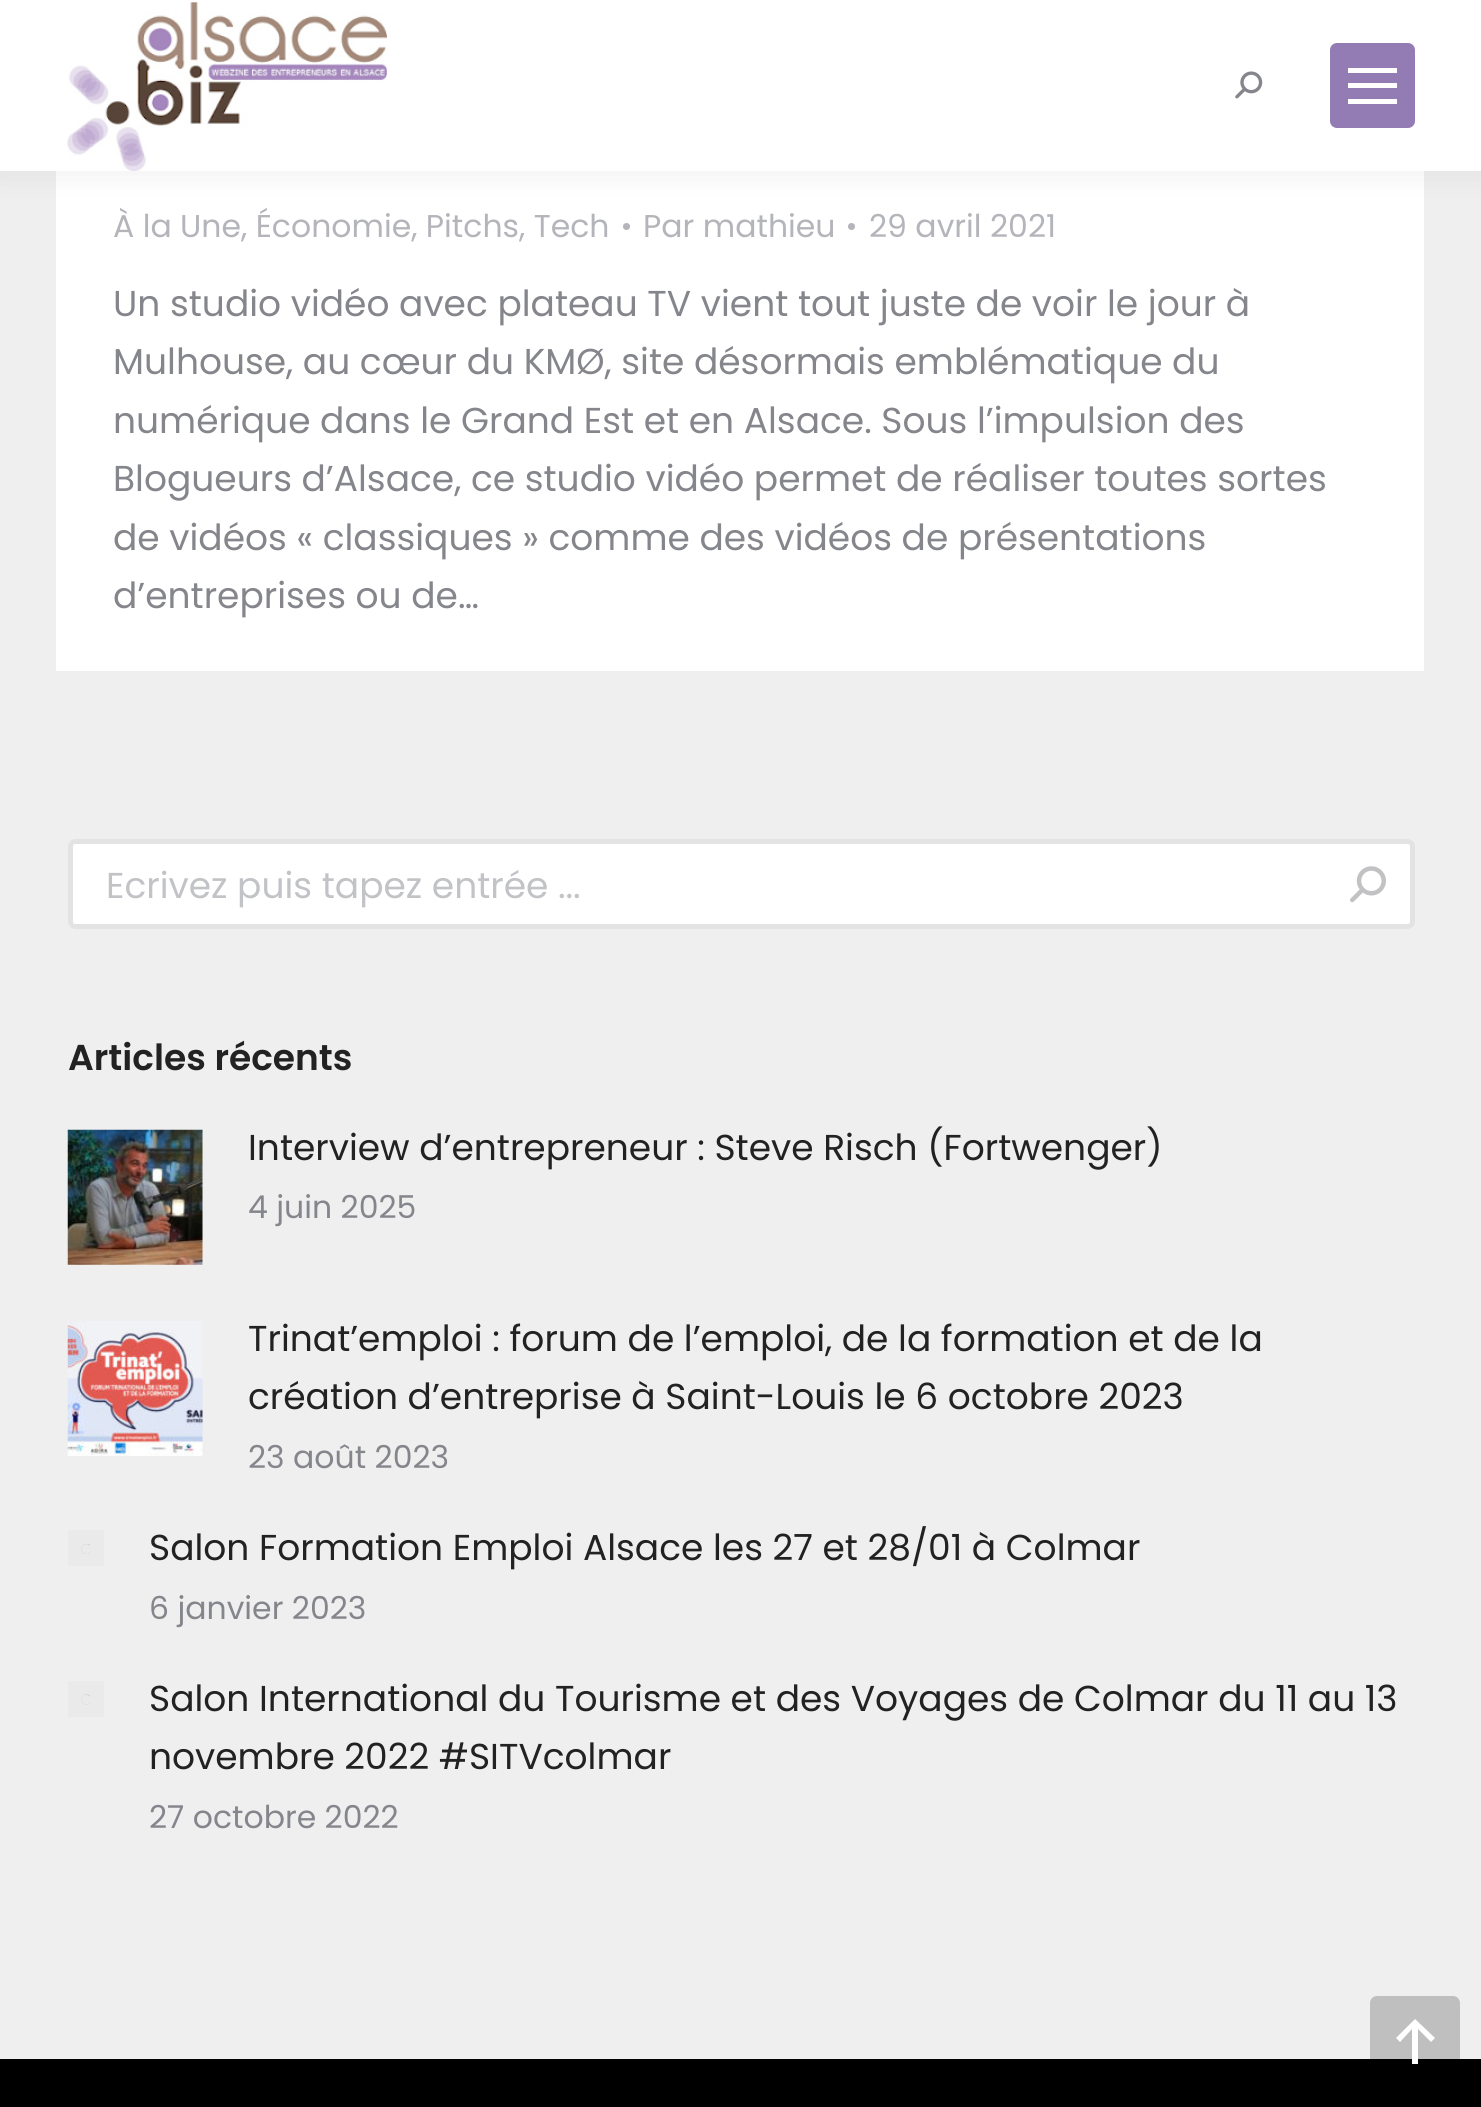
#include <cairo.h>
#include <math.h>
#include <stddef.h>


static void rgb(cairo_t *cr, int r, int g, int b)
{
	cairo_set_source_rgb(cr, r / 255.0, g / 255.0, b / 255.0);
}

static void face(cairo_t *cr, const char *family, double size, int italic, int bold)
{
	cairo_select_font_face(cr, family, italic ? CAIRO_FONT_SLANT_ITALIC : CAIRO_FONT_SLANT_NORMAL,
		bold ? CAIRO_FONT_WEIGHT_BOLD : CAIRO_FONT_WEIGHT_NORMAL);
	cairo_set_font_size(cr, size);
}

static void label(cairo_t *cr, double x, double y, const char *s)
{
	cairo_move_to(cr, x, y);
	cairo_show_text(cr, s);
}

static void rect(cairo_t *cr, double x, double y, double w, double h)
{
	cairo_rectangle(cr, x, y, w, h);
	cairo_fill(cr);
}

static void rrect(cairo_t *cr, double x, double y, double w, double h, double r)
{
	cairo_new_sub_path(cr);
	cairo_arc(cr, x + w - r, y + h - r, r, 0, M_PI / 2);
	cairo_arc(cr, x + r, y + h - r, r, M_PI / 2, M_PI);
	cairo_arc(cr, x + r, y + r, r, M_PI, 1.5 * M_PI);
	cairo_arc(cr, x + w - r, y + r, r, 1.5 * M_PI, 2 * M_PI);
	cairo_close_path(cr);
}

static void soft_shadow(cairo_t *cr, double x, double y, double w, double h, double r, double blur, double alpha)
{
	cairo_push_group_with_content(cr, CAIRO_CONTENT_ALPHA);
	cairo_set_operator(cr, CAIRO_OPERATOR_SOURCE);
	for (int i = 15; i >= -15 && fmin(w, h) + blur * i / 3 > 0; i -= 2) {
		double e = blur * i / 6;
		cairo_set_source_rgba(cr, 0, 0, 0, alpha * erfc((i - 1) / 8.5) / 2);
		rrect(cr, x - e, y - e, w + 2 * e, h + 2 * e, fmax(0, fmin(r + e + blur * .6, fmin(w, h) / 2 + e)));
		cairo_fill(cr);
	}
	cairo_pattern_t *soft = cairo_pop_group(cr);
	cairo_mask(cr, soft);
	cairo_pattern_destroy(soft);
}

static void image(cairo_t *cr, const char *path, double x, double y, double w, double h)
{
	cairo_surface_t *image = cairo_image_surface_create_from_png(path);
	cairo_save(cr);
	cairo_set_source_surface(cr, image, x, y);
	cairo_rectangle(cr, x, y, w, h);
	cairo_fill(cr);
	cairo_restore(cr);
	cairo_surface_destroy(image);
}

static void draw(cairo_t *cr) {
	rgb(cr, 239, 239, 240);
	cairo_paint(cr);
	rgb(cr, 255, 255, 255);
	rect(cr, 56, 171, 1368, 500);
	rgb(cr, 180, 181, 187);
	cairo_arc(cr, 626.5, 226.5, 3.5, 0, 2 * M_PI);
	cairo_fill(cr);
	cairo_arc(cr, 851.5, 226.5, 3.5, 0, 2 * M_PI);
	cairo_fill(cr);
	rgb(cr, 0, 0, 0);
	soft_shadow(cr, -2, -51, 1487, 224, 0, 17, 0.07);
	rgb(cr, 255, 255, 255);
	rect(cr, 0, 0, 1481, 171);
	image(cr, "image0.png", 67, 2, 320, 169);
	image(cr, "image1.png", 1235, 71, 28, 28);
	rgb(cr, 147, 123, 179);
	rrect(cr, 1330, 43, 85, 85, 7);
	cairo_fill(cr);
	rgb(cr, 255, 255, 255);
	rect(cr, 1348, 68, 49, 5);
	rect(cr, 1348, 83, 49, 5);
	rect(cr, 1348, 99, 49, 5);
	face(cr, "Poppins", 31.5, 0, 0);
	rgb(cr, 180, 181, 187);
	label(cr, 113, 237, "À la Une, Économie, Pitchs, Tech");
	label(cr, 643, 237, "Par mathieu");
	label(cr, 869, 237, "29 avril 2021");
	face(cr, "Poppins", 36, 0, 0);
	rgb(cr, 133, 134, 140);
	label(cr, 113, 316, "Un studio vidéo avec plateau TV vient tout juste de voir le jour à");
	label(cr, 113, 374, "Mulhouse, au cœur du KMØ, site désormais emblématique du");
	label(cr, 113, 433, "numérique dans le Grand Est et en Alsace. Sous l’impulsion des");
	label(cr, 113, 491, "Blogueurs d’Alsace, ce studio vidéo permet de réaliser toutes sortes");
	label(cr, 113, 550, "de vidéos « classiques » comme des vidéos de présentations");
	label(cr, 113, 608, "d’entreprises ou de…");
	rgb(cr, 255, 255, 255);
	rrect(cr, 68, 839, 1347, 90, 7);
	cairo_fill(cr);
	rrect(cr, 70.5, 841.5, 1342, 85, 4.5);
	cairo_set_source_rgba(cr, 0.851, 0.851, 0.855, 0.75);
	cairo_set_line_width(cr, 5);
	cairo_stroke(cr);
	rgb(cr, 194, 195, 198);
	label(cr, 106, 898, "Ecrivez puis tapez entrée ...");
	image(cr, "image2.png", 1350, 866, 36, 37);
	face(cr, "Poppins SemiBold", 36, 0, 0);
	rgb(cr, 34, 34, 34);
	label(cr, 68, 1070, "Articles récents");
	image(cr, "image3.png", 67, 1129, 136, 136);
	face(cr, "Poppins", 36, 0, 0);
	label(cr, 248, 1160, "Interview d’entrepreneur : Steve Risch (Fortwenger)");
	face(cr, "Poppins", 31.5, 0, 0);
	rgb(cr, 133, 134, 140);
	label(cr, 248, 1218, "4 juin 2025");
	image(cr, "image4.png", 67, 1321, 136, 135);
	face(cr, "Poppins", 36, 0, 0);
	rgb(cr, 34, 34, 34);
	label(cr, 248, 1351, "Trinat’emploi : forum de l’emploi, de la formation et de la");
	label(cr, 248, 1409, "création d’entreprise à Saint-Louis le 6 octobre 2023");
	face(cr, "Poppins", 31.5, 0, 0);
	rgb(cr, 133, 134, 140);
	label(cr, 248, 1468, "23 août 2023");
	rgb(cr, 234, 234, 235);
	rect(cr, 68, 1530, 36, 36);
	image(cr, "image5.png", 81, 1544, 9, 10);
	face(cr, "Poppins", 36, 0, 0);
	rgb(cr, 34, 34, 34);
	label(cr, 149, 1560, "Salon Formation Emploi Alsace les 27 et 28/01 à Colmar");
	face(cr, "Poppins", 31.5, 0, 0);
	rgb(cr, 133, 134, 140);
	label(cr, 149, 1619, "6 janvier 2023");
	rgb(cr, 234, 234, 235);
	rect(cr, 68, 1681, 36, 36);
	image(cr, "image6.png", 81, 1694, 9, 11);
	face(cr, "Poppins", 36, 0, 0);
	rgb(cr, 34, 34, 34);
	label(cr, 149, 1711, "Salon International du Tourisme et des Voyages de Colmar du 11 au 13");
	label(cr, 149, 1769, "novembre 2022 #SITVcolmar");
	face(cr, "Poppins", 31.5, 0, 0);
	rgb(cr, 133, 134, 140);
	label(cr, 149, 1828, "27 octobre 2022");
	rgb(cr, 0, 0, 0);
	rect(cr, 0, 2059, 1481, 48);
	cairo_set_source_rgba(cr, 0, 0, 0, 0.2);
	rrect(cr, 1370, 1996, 90, 90, 7);
	cairo_fill(cr);
	rgb(cr, 255, 255, 255);
	cairo_new_path(cr);
	cairo_move_to(cr, 1396, 2038);
	cairo_line_to(cr, 1400, 2042);
	cairo_line_to(cr, 1412, 2029);
	cairo_line_to(cr, 1412, 2064);
	cairo_line_to(cr, 1418, 2064);
	cairo_line_to(cr, 1418, 2029);
	cairo_line_to(cr, 1431, 2042);
	cairo_line_to(cr, 1435, 2038);
	cairo_line_to(cr, 1415, 2019);
	cairo_close_path(cr);
	cairo_fill(cr);
}

int main(void) {
	cairo_surface_t *surface = cairo_image_surface_create(CAIRO_FORMAT_RGB24, 1481, 2107);
	cairo_t *cr = cairo_create(surface);
	cairo_font_options_t *options = cairo_font_options_create();
	cairo_font_options_set_hint_metrics(options, CAIRO_HINT_METRICS_OFF);
	cairo_font_options_set_hint_style(options, CAIRO_HINT_STYLE_NONE);
	cairo_set_font_options(cr, options);
	cairo_set_miter_limit(cr, 4);
	draw(cr);
	cairo_surface_write_to_png(surface, "render.png");
	cairo_font_options_destroy(options);
	cairo_destroy(cr);
	cairo_surface_destroy(surface);
	return 0;
}
